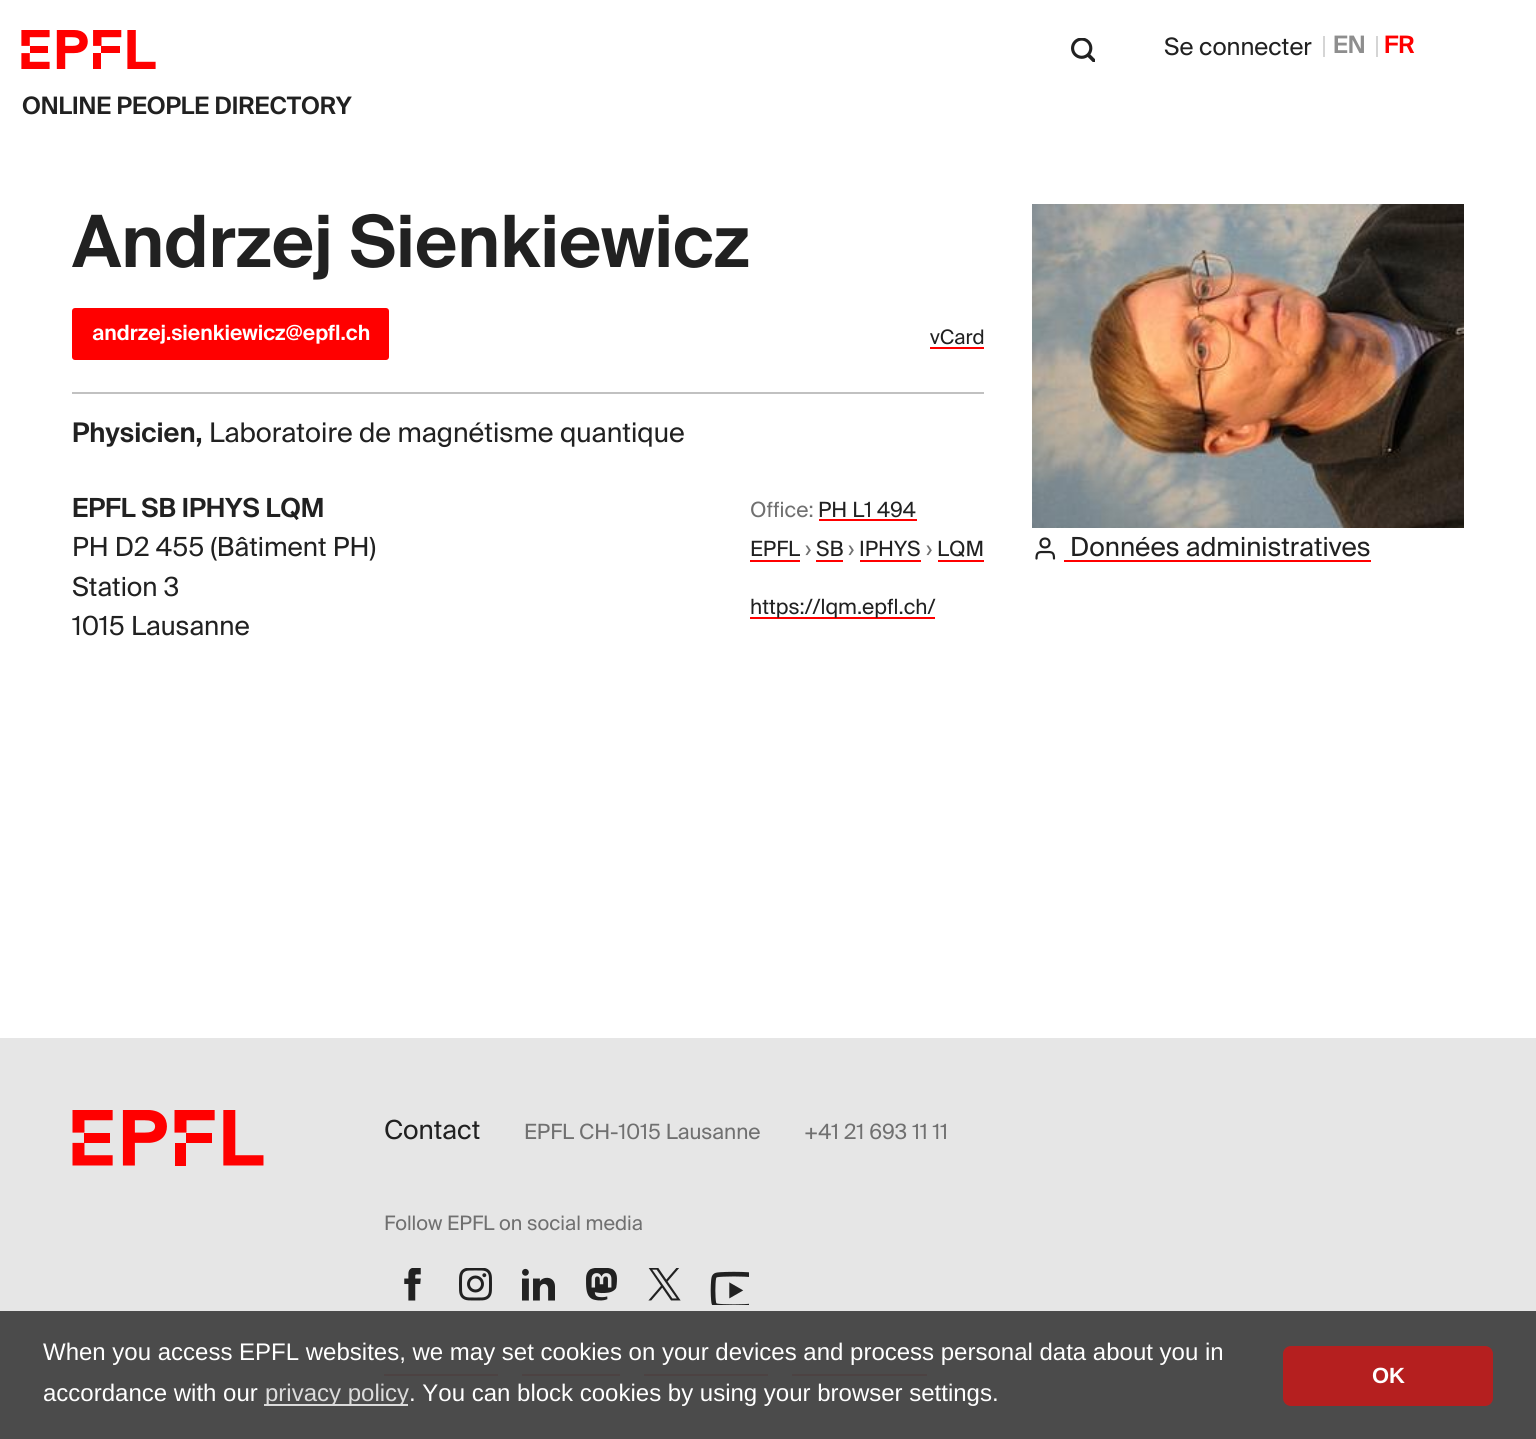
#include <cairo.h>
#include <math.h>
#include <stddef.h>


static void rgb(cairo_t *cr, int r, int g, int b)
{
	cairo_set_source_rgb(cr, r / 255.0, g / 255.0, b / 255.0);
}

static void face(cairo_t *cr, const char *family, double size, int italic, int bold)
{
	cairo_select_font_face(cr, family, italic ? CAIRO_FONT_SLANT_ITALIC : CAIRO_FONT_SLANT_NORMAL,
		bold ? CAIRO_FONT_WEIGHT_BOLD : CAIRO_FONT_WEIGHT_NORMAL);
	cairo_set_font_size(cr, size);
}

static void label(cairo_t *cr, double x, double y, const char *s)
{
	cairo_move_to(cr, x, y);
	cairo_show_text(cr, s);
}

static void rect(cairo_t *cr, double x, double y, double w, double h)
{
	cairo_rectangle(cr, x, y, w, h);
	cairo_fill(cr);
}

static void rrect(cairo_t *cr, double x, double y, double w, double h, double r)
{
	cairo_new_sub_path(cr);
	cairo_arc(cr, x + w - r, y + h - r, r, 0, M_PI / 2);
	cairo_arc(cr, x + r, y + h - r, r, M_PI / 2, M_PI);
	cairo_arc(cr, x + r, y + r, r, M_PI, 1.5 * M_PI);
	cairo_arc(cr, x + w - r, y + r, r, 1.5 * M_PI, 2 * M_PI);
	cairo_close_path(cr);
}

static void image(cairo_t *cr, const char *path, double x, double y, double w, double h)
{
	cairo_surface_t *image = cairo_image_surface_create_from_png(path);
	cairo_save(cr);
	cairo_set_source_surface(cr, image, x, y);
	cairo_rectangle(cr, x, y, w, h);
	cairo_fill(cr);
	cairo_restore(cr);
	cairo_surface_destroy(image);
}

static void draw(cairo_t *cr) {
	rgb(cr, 255, 255, 255);
	cairo_paint(cr);
	image(cr, "image0.png", 21, 30, 135, 39);
	image(cr, "image1.png", 1071, 38, 24, 24);
	face(cr, "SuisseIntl", 24, 0, 0);
	rgb(cr, 33, 33, 33);
	label(cr, 1164, 55, "Se connecter");
	rgb(cr, 213, 213, 213);
	rect(cr, 1323, 36, 2, 21);
	face(cr, "SuisseIntl SemiBold", 24, 0, 0);
	rgb(cr, 142, 142, 142);
	label(cr, 1333, 53, "EN");
	rgb(cr, 213, 213, 213);
	rect(cr, 1376, 36, 2, 21);
	rgb(cr, 255, 0, 0);
	label(cr, 1384, 53, "FR");
	rgb(cr, 33, 33, 33);
	label(cr, 22, 114, "ONLINE PEOPLE DIRECTORY");
	face(cr, "SuisseIntl SemiBold", 72, 0, 0);
	label(cr, 72, 267, "Andrzej Sienkiewicz");
	rgb(cr, 255, 0, 0);
	rrect(cr, 73, 309, 315, 50, 2);
	cairo_fill_preserve(cr);
	cairo_stroke(cr);
	face(cr, "SuisseIntl SemiBold", 21, 0, 0);
	rgb(cr, 255, 255, 255);
	label(cr, 92, 340, "andrzej.sienkiewicz@epfl.ch");
	face(cr, "SuisseIntl", 20, 0, 0);
	rgb(cr, 33, 33, 33);
	label(cr, 930, 344, "vCard");
	rgb(cr, 255, 0, 0);
	rect(cr, 930, 347, 54, 2);
	rgb(cr, 193, 193, 193);
	rect(cr, 72, 392, 912, 2);
	face(cr, "SuisseIntl SemiBold", 27, 0, 0);
	rgb(cr, 33, 33, 33);
	label(cr, 72, 442, "Physicien,");
	face(cr, "SuisseIntl", 27, 0, 0);
	label(cr, 209, 442, "Laboratoire de magnétisme quantique");
	face(cr, "SuisseIntl SemiBold", 26.3, 0, 0);
	label(cr, 72, 517, "EPFL SB IPHYS LQM");
	face(cr, "SuisseIntl", 26.3, 0, 0);
	label(cr, 72, 556, "PH D2 455 (Bâtiment PH)");
	label(cr, 72, 596, "Station 3");
	label(cr, 72, 635, "1015 Lausanne");
	face(cr, "SuisseIntl", 21, 0, 0);
	rgb(cr, 112, 112, 112);
	label(cr, 750, 517, "Office:");
	rgb(cr, 33, 33, 33);
	label(cr, 818, 517, "PH L1 494");
	rgb(cr, 255, 0, 0);
	rect(cr, 819, 519, 98, 2);
	rgb(cr, 33, 33, 33);
	label(cr, 750, 556, "EPFL");
	rgb(cr, 255, 0, 0);
	rect(cr, 750, 560, 50, 2);
	rgb(cr, 112, 112, 112);
	label(cr, 805, 556, "›");
	rgb(cr, 33, 33, 33);
	label(cr, 816, 556, "SB");
	rgb(cr, 255, 0, 0);
	rect(cr, 816, 560, 27, 2);
	rgb(cr, 112, 112, 112);
	label(cr, 848, 556, "›");
	rgb(cr, 33, 33, 33);
	label(cr, 859, 556, "IPHYS");
	rgb(cr, 255, 0, 0);
	rect(cr, 860, 560, 61, 2);
	rgb(cr, 112, 112, 112);
	label(cr, 926, 556, "›");
	rgb(cr, 33, 33, 33);
	label(cr, 937, 556, "LQM");
	rgb(cr, 255, 0, 0);
	rect(cr, 938, 560, 46, 2);
	rect(cr, 750, 617, 185, 2);
	rgb(cr, 33, 33, 33);
	label(cr, 750, 614, "https://lqm.epfl.ch/");
	image(cr, "image2.png", 1032, 204, 432, 324);
	cairo_new_path(cr);
	cairo_move_to(cr, 1054, 558.5);
	cairo_curve_to(cr, 1054, 551.5, 1051.5, 552, 1045, 552);
	cairo_curve_to(cr, 1039, 552, 1036.5, 551.5, 1036.5, 558.5);
	cairo_set_line_width(cr, 2.2);
	cairo_set_line_cap(cr, CAIRO_LINE_CAP_ROUND);
	cairo_set_line_join(cr, CAIRO_LINE_JOIN_ROUND);
	cairo_stroke(cr);
	cairo_arc(cr, 1045, 543, 4.5, 0, 2 * M_PI);
	cairo_set_line_cap(cr, CAIRO_LINE_CAP_BUTT);
	cairo_set_line_join(cr, CAIRO_LINE_JOIN_MITER);
	cairo_stroke(cr);
	face(cr, "SuisseIntl", 26.3, 0, 0);
	label(cr, 1070, 556, "Données administratives");
	rgb(cr, 255, 0, 0);
	rect(cr, 1064, 560, 307, 2);
	rgb(cr, 230, 230, 230);
	rect(cr, 0, 1038, 1536, 273);
	rgb(cr, 75, 75, 75);
	rect(cr, 0, 1311, 1536, 128);
	image(cr, "image3.png", 72, 1110, 192, 56);
	rgb(cr, 33, 33, 33);
	label(cr, 384, 1139, "Contact");
	face(cr, "SuisseIntl", 21, 0, 0);
	rgb(cr, 112, 112, 112);
	label(cr, 524, 1139, "EPFL CH-1015 Lausanne");
	label(cr, 804, 1139, "+41 21 693 11 11");
	face(cr, "SuisseIntl", 19.9, 0, 0);
	label(cr, 384, 1230, "Follow EPFL on social media");
	image(cr, "image4.png", 404, 1268, 17, 33);
	image(cr, "image5.png", 459, 1268, 33, 33);
	image(cr, "image6.png", 522, 1268, 33, 33);
	image(cr, "image7.png", 586, 1268, 31, 33);
	image(cr, "image8.png", 648, 1268, 33, 33);
	image(cr, "image9.png", 710, 1271, 39, 34);
	rgb(cr, 76, 66, 66);
	rect(cr, 384, 1374, 114, 2);
	rect(cr, 522, 1374, 98, 2);
	rect(cr, 644, 1374, 124, 2);
	rect(cr, 792, 1374, 135, 2);
	face(cr, "Liberation Sans", 24, 0, 0);
	rgb(cr, 255, 255, 255);
	label(cr, 43, 1360, "When you access EPFL websites, we may set cookies on your devices and process personal data about you in");
	label(cr, 43, 1401, "accordance with our");
	rgb(cr, 219, 219, 219);
	rect(cr, 264, 1404, 144, 2);
	label(cr, 265, 1401, "privacy policy");
	rgb(cr, 255, 255, 255);
	label(cr, 409, 1401, ". You can block cookies by using your browser settings.");
	rgb(cr, 181, 31, 31);
	rrect(cr, 1283, 1346, 210, 60, 8);
	cairo_fill(cr);
	face(cr, "Liberation Sans", 22, 0, 1);
	rgb(cr, 255, 255, 255);
	label(cr, 1372, 1383, "OK");
}

int main(void) {
	cairo_surface_t *surface = cairo_image_surface_create(CAIRO_FORMAT_RGB24, 1536, 1439);
	cairo_t *cr = cairo_create(surface);
	cairo_font_options_t *options = cairo_font_options_create();
	cairo_font_options_set_hint_metrics(options, CAIRO_HINT_METRICS_OFF);
	cairo_font_options_set_hint_style(options, CAIRO_HINT_STYLE_NONE);
	cairo_set_font_options(cr, options);
	cairo_set_miter_limit(cr, 4);
	draw(cr);
	cairo_surface_write_to_png(surface, "render.png");
	cairo_font_options_destroy(options);
	cairo_destroy(cr);
	cairo_surface_destroy(surface);
	return 0;
}
